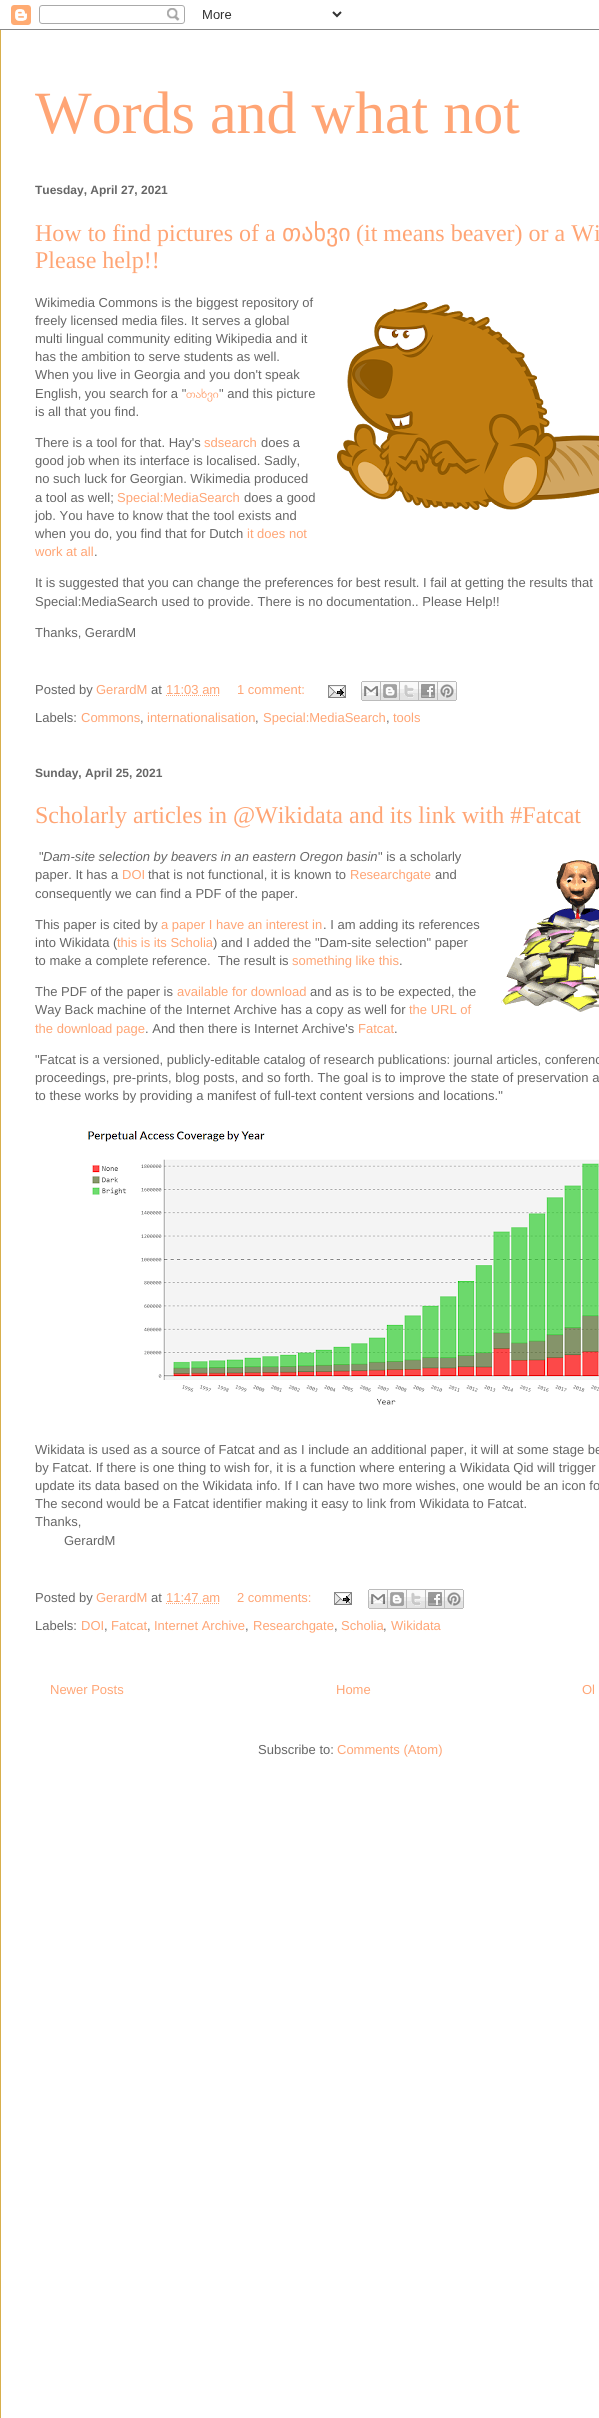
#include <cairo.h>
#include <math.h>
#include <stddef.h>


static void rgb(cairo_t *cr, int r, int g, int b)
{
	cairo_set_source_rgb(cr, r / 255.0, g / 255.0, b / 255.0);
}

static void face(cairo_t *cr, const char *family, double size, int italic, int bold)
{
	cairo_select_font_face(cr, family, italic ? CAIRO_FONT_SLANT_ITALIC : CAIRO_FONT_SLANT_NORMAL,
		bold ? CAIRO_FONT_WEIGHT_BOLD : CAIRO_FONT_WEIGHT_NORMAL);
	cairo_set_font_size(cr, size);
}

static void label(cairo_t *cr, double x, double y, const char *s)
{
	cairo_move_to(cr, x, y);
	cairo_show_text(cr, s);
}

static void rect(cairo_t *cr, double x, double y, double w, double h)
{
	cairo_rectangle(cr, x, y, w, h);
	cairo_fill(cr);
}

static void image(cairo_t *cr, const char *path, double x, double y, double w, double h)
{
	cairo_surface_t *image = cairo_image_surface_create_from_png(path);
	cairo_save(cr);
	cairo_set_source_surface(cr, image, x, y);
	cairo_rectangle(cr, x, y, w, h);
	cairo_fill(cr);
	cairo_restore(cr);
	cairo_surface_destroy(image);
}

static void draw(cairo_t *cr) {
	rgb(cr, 255, 255, 255);
	cairo_paint(cr);
	image(cr, "image0.png", 0, 0, 599, 29);
	image(cr, "image1.png", 0, 5, 599, 25);
	rgb(cr, 216, 175, 76);
	rect(cr, 0, 30, 1, 2388);
	face(cr, "Liberation Serif", 60, 0, 0);
	rgb(cr, 255, 165, 117);
	label(cr, 35, 133, "Words and what not");
	face(cr, "Liberation Sans", 12, 0, 1);
	rgb(cr, 102, 102, 102);
	label(cr, 35, 194, "Tuesday, April 27, 2021");
	face(cr, "Liberation Serif", 24, 0, 0);
	rgb(cr, 255, 165, 117);
	label(cr, 35, 241, "How to find pictures of a");
	face(cr, "DejaVu Sans", 24, 0, 0);
	label(cr, 282, 241, "თახვი");
	face(cr, "Liberation Serif", 24, 0, 0);
	label(cr, 356, 241, "(it means beaver) or a Wi");
	label(cr, 35, 268, "Please help!!");
	face(cr, "Liberation Sans", 13, 0, 0);
	rgb(cr, 102, 102, 102);
	label(cr, 35, 307, "Wikimedia Commons is the biggest repository of");
	image(cr, "image2.png", 337, 302, 262, 208);
	label(cr, 35, 325, "freely licensed media files. It serves a global");
	label(cr, 35, 343, "multi lingual community editing Wikipedia and it");
	label(cr, 35, 361, "has the ambition to serve students as well.");
	label(cr, 35, 379, "When you live in Georgia and you don't speak");
	label(cr, 35, 398, "English, you search for a \"");
	face(cr, "FreeSans", 13, 0, 0);
	rgb(cr, 255, 165, 117);
	label(cr, 186, 398, "თახვი");
	face(cr, "Liberation Sans", 13, 0, 0);
	rgb(cr, 102, 102, 102);
	label(cr, 219, 398, "\" and this picture");
	label(cr, 35, 416, "is all that you find.");
	label(cr, 35, 447, "There is a tool for that. Hay's");
	rgb(cr, 255, 165, 117);
	label(cr, 204, 447, "sdsearch");
	rgb(cr, 102, 102, 102);
	label(cr, 261, 447, "does a");
	label(cr, 35, 465, "good job when its interface is localised. Sadly,");
	label(cr, 35, 483, "no such luck for Georgian. Wikimedia produced");
	label(cr, 35, 502, "a tool as well;");
	rgb(cr, 255, 165, 117);
	label(cr, 117, 502, "Special:MediaSearch");
	rgb(cr, 102, 102, 102);
	label(cr, 244, 502, "does a good");
	label(cr, 35, 520, "job. You have to know that the tool exists and");
	label(cr, 35, 538, "when you do, you find that for Dutch");
	rgb(cr, 255, 165, 117);
	label(cr, 247, 538, "it does not");
	label(cr, 35, 556, "work at all");
	rgb(cr, 102, 102, 102);
	label(cr, 94, 556, ".");
	label(cr, 35, 587, "It is suggested that you can change the preferences for best result. I fail at getting the results that");
	label(cr, 35, 606, "Special:MediaSearch used to provide. There is no documentation.. Please Help!!");
	label(cr, 35, 637, "Thanks, GerardM");
	label(cr, 35, 694, "Posted by");
	rgb(cr, 255, 165, 117);
	label(cr, 96, 694, "GerardM");
	rgb(cr, 102, 102, 102);
	label(cr, 151, 694, "at");
	rgb(cr, 255, 165, 117);
	label(cr, 166, 694, "11:03 am");
	cairo_new_path(cr);
	cairo_move_to(cr, 166, 695.5);
	cairo_line_to(cr, 220, 695.5);
	cairo_set_line_width(cr, 1);
	cairo_set_dash(cr, (double[]){1, 1}, 2, 0);
	cairo_stroke(cr);
	label(cr, 237, 694, "1 comment:");
	image(cr, "image3.png", 328, 685, 18, 13);
	image(cr, "image4.png", 361, 681, 20, 20);
	image(cr, "image5.png", 381, 681, 19, 20);
	image(cr, "image6.png", 400, 681, 19, 20);
	image(cr, "image7.png", 419, 681, 19, 20);
	image(cr, "image8.png", 438, 681, 19, 20);
	rgb(cr, 102, 102, 102);
	label(cr, 35, 722, "Labels:");
	rgb(cr, 255, 165, 117);
	label(cr, 81, 722, "Commons");
	rgb(cr, 102, 102, 102);
	label(cr, 140, 722, ",");
	rgb(cr, 255, 165, 117);
	label(cr, 147, 722, "internationalisation");
	rgb(cr, 102, 102, 102);
	label(cr, 255, 722, ",");
	rgb(cr, 255, 165, 117);
	label(cr, 263, 722, "Special:MediaSearch");
	rgb(cr, 102, 102, 102);
	label(cr, 386, 722, ",");
	rgb(cr, 255, 165, 117);
	label(cr, 393, 722, "tools");
	face(cr, "Liberation Sans", 12, 0, 1);
	rgb(cr, 102, 102, 102);
	label(cr, 35, 777, "Sunday, April 25, 2021");
	face(cr, "Liberation Serif", 24, 0, 0);
	rgb(cr, 255, 165, 117);
	label(cr, 35, 823, "Scholarly articles in @Wikidata and its link with #Fatcat");
	face(cr, "Liberation Sans", 13, 0, 0);
	rgb(cr, 102, 102, 102);
	label(cr, 39, 861, "\"");
	face(cr, "Liberation Sans", 13, 1, 0);
	label(cr, 43, 861, "Dam-site selection by beavers in an eastern Oregon basin");
	face(cr, "Liberation Sans", 13, 0, 0);
	label(cr, 378, 861, "\" is a scholarly");
	label(cr, 35, 879, "paper. It has a");
	rgb(cr, 255, 165, 117);
	label(cr, 122, 879, "DOI");
	rgb(cr, 102, 102, 102);
	label(cr, 148, 879, "that is not functional, it is known to");
	rgb(cr, 255, 165, 117);
	label(cr, 350, 879, "Researchgate");
	rgb(cr, 102, 102, 102);
	label(cr, 435, 879, "and");
	image(cr, "image9.png", 501, 860, 98, 152);
	label(cr, 35, 898, "consequently we can find a PDF of the paper.");
	label(cr, 35, 929, "This paper is cited by");
	rgb(cr, 255, 165, 117);
	label(cr, 161, 929, "a paper I have an interest in");
	rgb(cr, 102, 102, 102);
	label(cr, 323, 929, ". I am adding its references");
	label(cr, 35, 947, "into Wikidata (");
	rgb(cr, 255, 165, 117);
	label(cr, 117, 947, "this is its Scholia");
	rgb(cr, 102, 102, 102);
	label(cr, 213, 947, ") and I added the \"Dam-site selection\" paper");
	label(cr, 35, 965, "to make a complete reference.  The result is");
	rgb(cr, 255, 165, 117);
	label(cr, 292, 965, "something like this");
	rgb(cr, 102, 102, 102);
	label(cr, 399, 965, ".");
	label(cr, 35, 996, "The PDF of the paper is");
	rgb(cr, 255, 165, 117);
	label(cr, 177, 996, "available for download");
	rgb(cr, 102, 102, 102);
	label(cr, 310, 996, "and as is to be expected, the");
	label(cr, 35, 1014, "Way Back machine of the Internet Archive has a copy as well for");
	rgb(cr, 255, 165, 117);
	label(cr, 409, 1014, "the URL of");
	label(cr, 35, 1033, "the download page");
	rgb(cr, 102, 102, 102);
	label(cr, 145, 1033, ". And then there is Internet Archive's");
	rgb(cr, 255, 165, 117);
	label(cr, 358, 1033, "Fatcat");
	rgb(cr, 102, 102, 102);
	label(cr, 394, 1033, ".");
	label(cr, 35, 1064, "\"Fatcat is a versioned, publicly-editable catalog of research publications: journal articles, conferenc");
	label(cr, 35, 1082, "proceedings, pre-prints, blog posts, and so forth. The goal is to improve the state of preservation a");
	label(cr, 35, 1100, "to these works by providing a manifest of full-text content versions and locations.\"");
	image(cr, "image10.png", 88, 1131, 511, 274);
	label(cr, 35, 1454, "Wikidata is used as a source of Fatcat and as I include an additional paper, it will at some stage be");
	label(cr, 35, 1472, "by Fatcat. If there is one thing to wish for, it is a function where entering a Wikidata Qid will trigger");
	label(cr, 35, 1490, "update its data based on the Wikidata info. If I can have two more wishes, one would be an icon fo");
	label(cr, 35, 1508, "The second would be a Fatcat identifier making it easy to link from Wikidata to Fatcat.");
	label(cr, 35, 1526, "Thanks,");
	label(cr, 64, 1545, "GerardM");
	label(cr, 35, 1602, "Posted by");
	rgb(cr, 255, 165, 117);
	label(cr, 96, 1602, "GerardM");
	rgb(cr, 102, 102, 102);
	label(cr, 151, 1602, "at");
	rgb(cr, 255, 165, 117);
	label(cr, 166, 1602, "11:47 am");
	cairo_new_path(cr);
	cairo_move_to(cr, 166, 1603.5);
	cairo_line_to(cr, 220, 1603.5);
	cairo_stroke(cr);
	label(cr, 237, 1602, "2 comments:");
	image(cr, "image3.png", 334, 1592, 18, 13);
	image(cr, "image4.png", 368, 1589, 20, 20);
	image(cr, "image5.png", 388, 1589, 19, 20);
	image(cr, "image6.png", 407, 1589, 19, 20);
	image(cr, "image7.png", 426, 1589, 19, 20);
	image(cr, "image8.png", 445, 1589, 19, 20);
	rgb(cr, 102, 102, 102);
	label(cr, 35, 1630, "Labels:");
	rgb(cr, 255, 165, 117);
	label(cr, 81, 1630, "DOI");
	rgb(cr, 102, 102, 102);
	label(cr, 104, 1630, ",");
	rgb(cr, 255, 165, 117);
	label(cr, 111, 1630, "Fatcat");
	rgb(cr, 102, 102, 102);
	label(cr, 147, 1630, ",");
	rgb(cr, 255, 165, 117);
	label(cr, 154, 1630, "Internet Archive");
	rgb(cr, 102, 102, 102);
	label(cr, 245, 1630, ",");
	rgb(cr, 255, 165, 117);
	label(cr, 253, 1630, "Researchgate");
	rgb(cr, 102, 102, 102);
	label(cr, 334, 1630, ",");
	rgb(cr, 255, 165, 117);
	label(cr, 341, 1630, "Scholia");
	rgb(cr, 102, 102, 102);
	label(cr, 383, 1630, ",");
	rgb(cr, 255, 165, 117);
	label(cr, 391, 1630, "Wikidata");
	label(cr, 50, 1694, "Newer Posts");
	label(cr, 336, 1694, "Home");
	label(cr, 582, 1694, "Ol");
	rgb(cr, 102, 102, 102);
	label(cr, 258, 1754, "Subscribe to:");
	rgb(cr, 255, 165, 117);
	label(cr, 337, 1754, "Comments (Atom)");
}

int main(void) {
	cairo_surface_t *surface = cairo_image_surface_create(CAIRO_FORMAT_RGB24, 599, 2418);
	cairo_t *cr = cairo_create(surface);
	cairo_font_options_t *options = cairo_font_options_create();
	cairo_font_options_set_hint_metrics(options, CAIRO_HINT_METRICS_OFF);
	cairo_font_options_set_hint_style(options, CAIRO_HINT_STYLE_NONE);
	cairo_set_font_options(cr, options);
	cairo_set_miter_limit(cr, 4);
	draw(cr);
	cairo_surface_write_to_png(surface, "render.png");
	cairo_font_options_destroy(options);
	cairo_destroy(cr);
	cairo_surface_destroy(surface);
	return 0;
}
